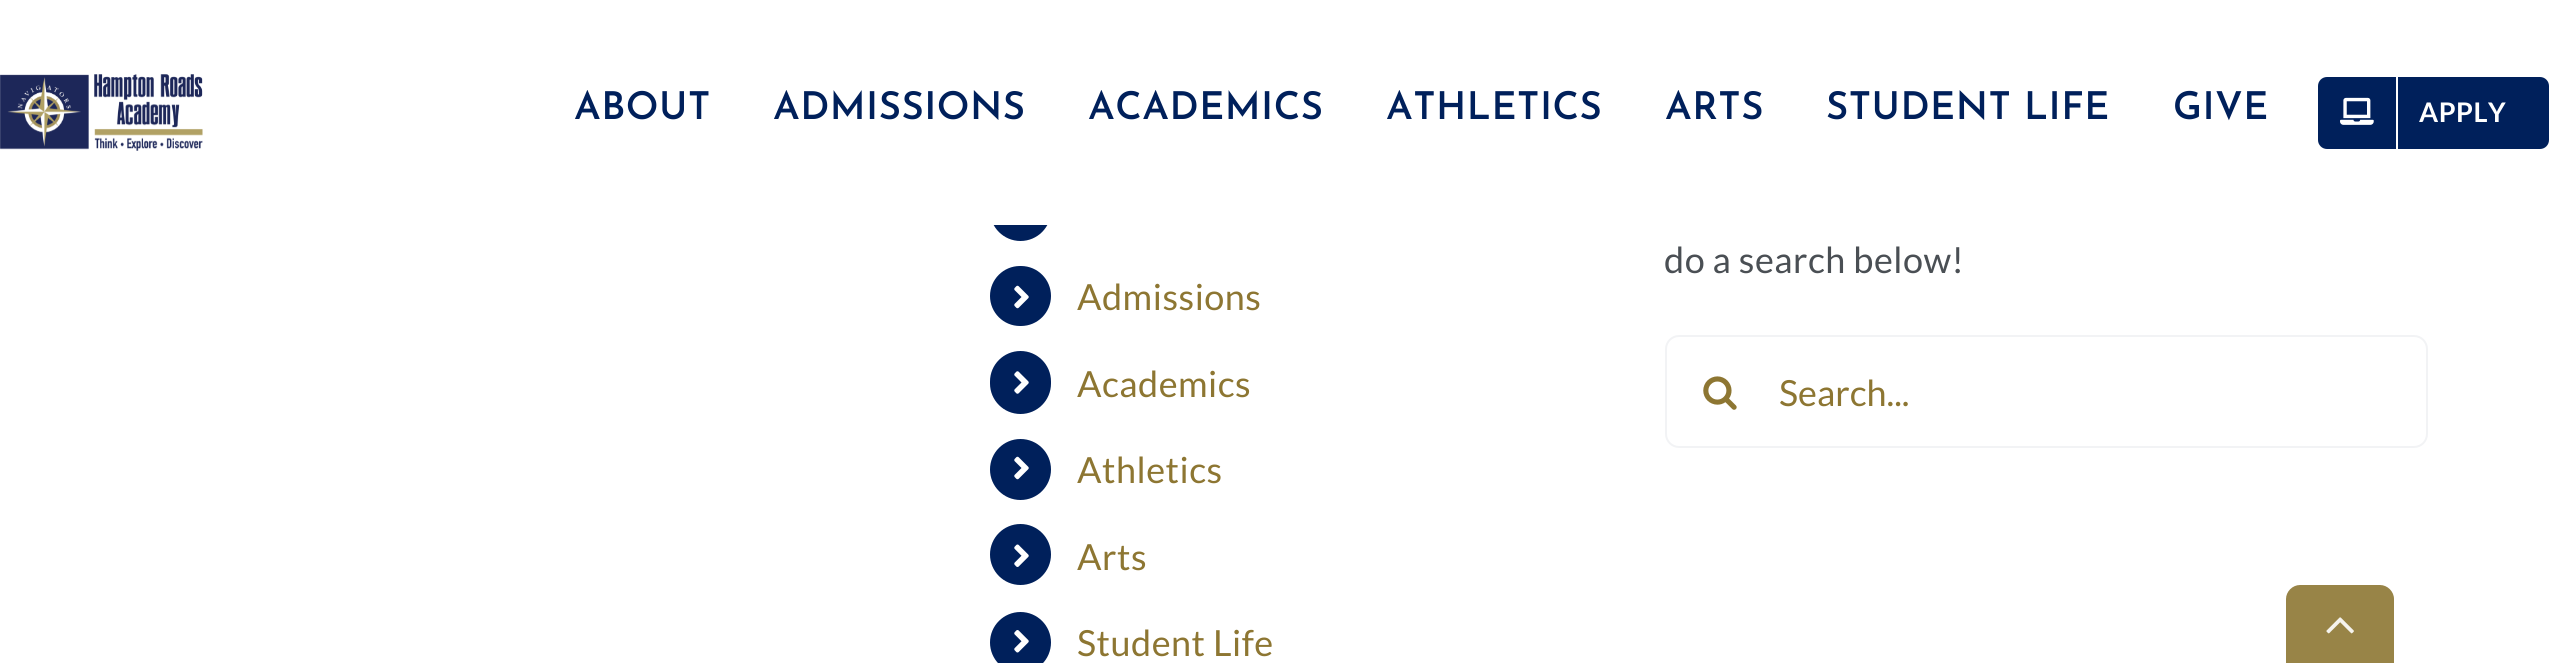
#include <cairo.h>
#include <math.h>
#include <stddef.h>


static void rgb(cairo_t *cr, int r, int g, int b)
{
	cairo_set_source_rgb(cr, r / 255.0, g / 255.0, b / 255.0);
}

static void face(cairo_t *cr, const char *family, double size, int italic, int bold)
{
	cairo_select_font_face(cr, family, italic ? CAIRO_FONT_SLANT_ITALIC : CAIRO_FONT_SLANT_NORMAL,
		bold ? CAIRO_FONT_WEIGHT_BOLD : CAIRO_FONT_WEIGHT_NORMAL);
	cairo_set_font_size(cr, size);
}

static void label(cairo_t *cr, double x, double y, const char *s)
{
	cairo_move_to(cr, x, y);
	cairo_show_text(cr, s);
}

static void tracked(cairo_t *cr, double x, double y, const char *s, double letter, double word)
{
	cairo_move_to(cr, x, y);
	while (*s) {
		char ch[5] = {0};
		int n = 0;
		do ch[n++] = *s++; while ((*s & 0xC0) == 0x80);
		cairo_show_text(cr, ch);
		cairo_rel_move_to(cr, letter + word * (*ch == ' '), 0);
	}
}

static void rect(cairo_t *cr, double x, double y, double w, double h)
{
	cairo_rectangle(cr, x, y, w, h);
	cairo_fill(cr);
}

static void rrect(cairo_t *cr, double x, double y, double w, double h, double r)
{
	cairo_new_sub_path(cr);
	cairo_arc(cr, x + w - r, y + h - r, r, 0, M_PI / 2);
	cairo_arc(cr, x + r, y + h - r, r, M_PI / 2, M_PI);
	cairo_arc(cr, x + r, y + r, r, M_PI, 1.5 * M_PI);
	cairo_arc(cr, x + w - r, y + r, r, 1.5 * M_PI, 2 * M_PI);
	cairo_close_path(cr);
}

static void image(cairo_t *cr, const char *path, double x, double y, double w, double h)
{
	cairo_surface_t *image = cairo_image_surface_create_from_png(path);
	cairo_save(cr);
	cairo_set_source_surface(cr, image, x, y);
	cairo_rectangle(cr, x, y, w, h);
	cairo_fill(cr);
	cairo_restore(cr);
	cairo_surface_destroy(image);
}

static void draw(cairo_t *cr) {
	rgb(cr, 255, 255, 255);
	cairo_paint(cr);
	rgb(cr, 0, 32, 91);
	cairo_arc(cr, 1020.5, 210.5, 30.5, 0, 2 * M_PI);
	cairo_fill(cr);
	rgb(cr, 255, 255, 255);
	rect(cr, 990, 180, 61, 45);
	image(cr, "image0.png", 0, 74, 203, 77);
	face(cr, "Josefin Sans SemiBold", 38.25, 0, 0);
	rgb(cr, 0, 32, 91);
	tracked(cr, 574, 119, "ABOUT", 0.5, 0);
	tracked(cr, 773, 119, "ADMISSIONS", 0.5, 0);
	tracked(cr, 1088, 119, "ACADEMICS", 0.5, 0);
	tracked(cr, 1386, 119, "ATHLETICS", 0.5, 0);
	tracked(cr, 1665, 119, "ARTS", 0.5, 0);
	tracked(cr, 1826, 119, "STUDENT LIFE", 0.5, 0);
	tracked(cr, 2173, 119, "GIVE", 0.5, 0);
	rrect(cr, 2318, 77, 231, 72, 9);
	cairo_fill(cr);
	rgb(cr, 255, 255, 255);
	rect(cr, 2396, 77, 2, 72);
	image(cr, "image1.png", 2340, 97, 34, 28);
	face(cr, "Lato", 27, 0, 1);
	tracked(cr, 2419, 122, "APPLY", 0.5, 0);
	rgb(cr, 0, 32, 91);
	rrect(cr, 990, 266, 61, 60, 30);
	cairo_fill(cr);
	image(cr, "image2.png", 1014, 285, 15, 24);
	face(cr, "Lato", 36, 0, 0);
	rgb(cr, 141, 118, 50);
	tracked(cr, 1077, 310, "Admissions", 0.5, 0);
	rgb(cr, 0, 32, 91);
	rrect(cr, 990, 351, 61, 63, 30.5);
	cairo_fill(cr);
	image(cr, "image3.png", 1014, 371, 15, 23);
	rgb(cr, 141, 118, 50);
	tracked(cr, 1077, 397, "Academics", 0.5, 0);
	rgb(cr, 0, 32, 91);
	cairo_new_path(cr);
	cairo_arc(cr, 1020.5, 469.5, 30.5, 0, 2 * M_PI);
	cairo_fill(cr);
	image(cr, "image2.png", 1014, 456, 15, 24);
	rgb(cr, 141, 118, 50);
	tracked(cr, 1077, 483, "Athletics", 0.5, 0);
	rgb(cr, 0, 32, 91);
	cairo_new_path(cr);
	cairo_arc(cr, 1020.5, 554.5, 30.5, 0, 2 * M_PI);
	cairo_fill(cr);
	image(cr, "image4.png", 1014, 544, 15, 23);
	rgb(cr, 141, 118, 50);
	tracked(cr, 1077, 570, "Arts", 0.5, 0);
	rgb(cr, 0, 32, 91);
	cairo_new_path(cr);
	cairo_arc(cr, 1020.5, 642.5, 30.5, 0, 2 * M_PI);
	cairo_fill(cr);
	image(cr, "image5.png", 1014, 630, 15, 23);
	rgb(cr, 141, 118, 50);
	tracked(cr, 1077, 656, "Student Life", 0.5, 0);
	rgb(cr, 74, 79, 84);
	tracked(cr, 1664, 273, "do a search below!", 0.5, 0);
	rrect(cr, 1666, 336, 761, 111, 13);
	rgb(cr, 242, 243, 245);
	cairo_stroke(cr);
	image(cr, "image6.png", 1703, 376, 34, 34);
	rgb(cr, 141, 118, 50);
	label(cr, 1779, 406, "Search...");
	rgb(cr, 152, 132, 71);
	cairo_new_path(cr);
	cairo_move_to(cr, 2300, 585);
	cairo_line_to(cr, 2380, 585);
	cairo_curve_to(cr, 2387.5, 585, 2394, 591.5, 2394, 599);
	cairo_line_to(cr, 2394, 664);
	cairo_line_to(cr, 2286, 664);
	cairo_line_to(cr, 2286, 599);
	cairo_curve_to(cr, 2286, 591.5, 2292.5, 585, 2300, 585);
	cairo_close_path(cr);
	cairo_fill(cr);
	image(cr, "image7.png", 2326, 617, 28, 17);
}

int main(void) {
	cairo_surface_t *surface = cairo_image_surface_create(CAIRO_FORMAT_RGB24, 2562, 663);
	cairo_t *cr = cairo_create(surface);
	cairo_font_options_t *options = cairo_font_options_create();
	cairo_font_options_set_hint_metrics(options, CAIRO_HINT_METRICS_OFF);
	cairo_font_options_set_hint_style(options, CAIRO_HINT_STYLE_NONE);
	cairo_set_font_options(cr, options);
	cairo_set_miter_limit(cr, 4);
	draw(cr);
	cairo_surface_write_to_png(surface, "render.png");
	cairo_font_options_destroy(options);
	cairo_destroy(cr);
	cairo_surface_destroy(surface);
	return 0;
}
